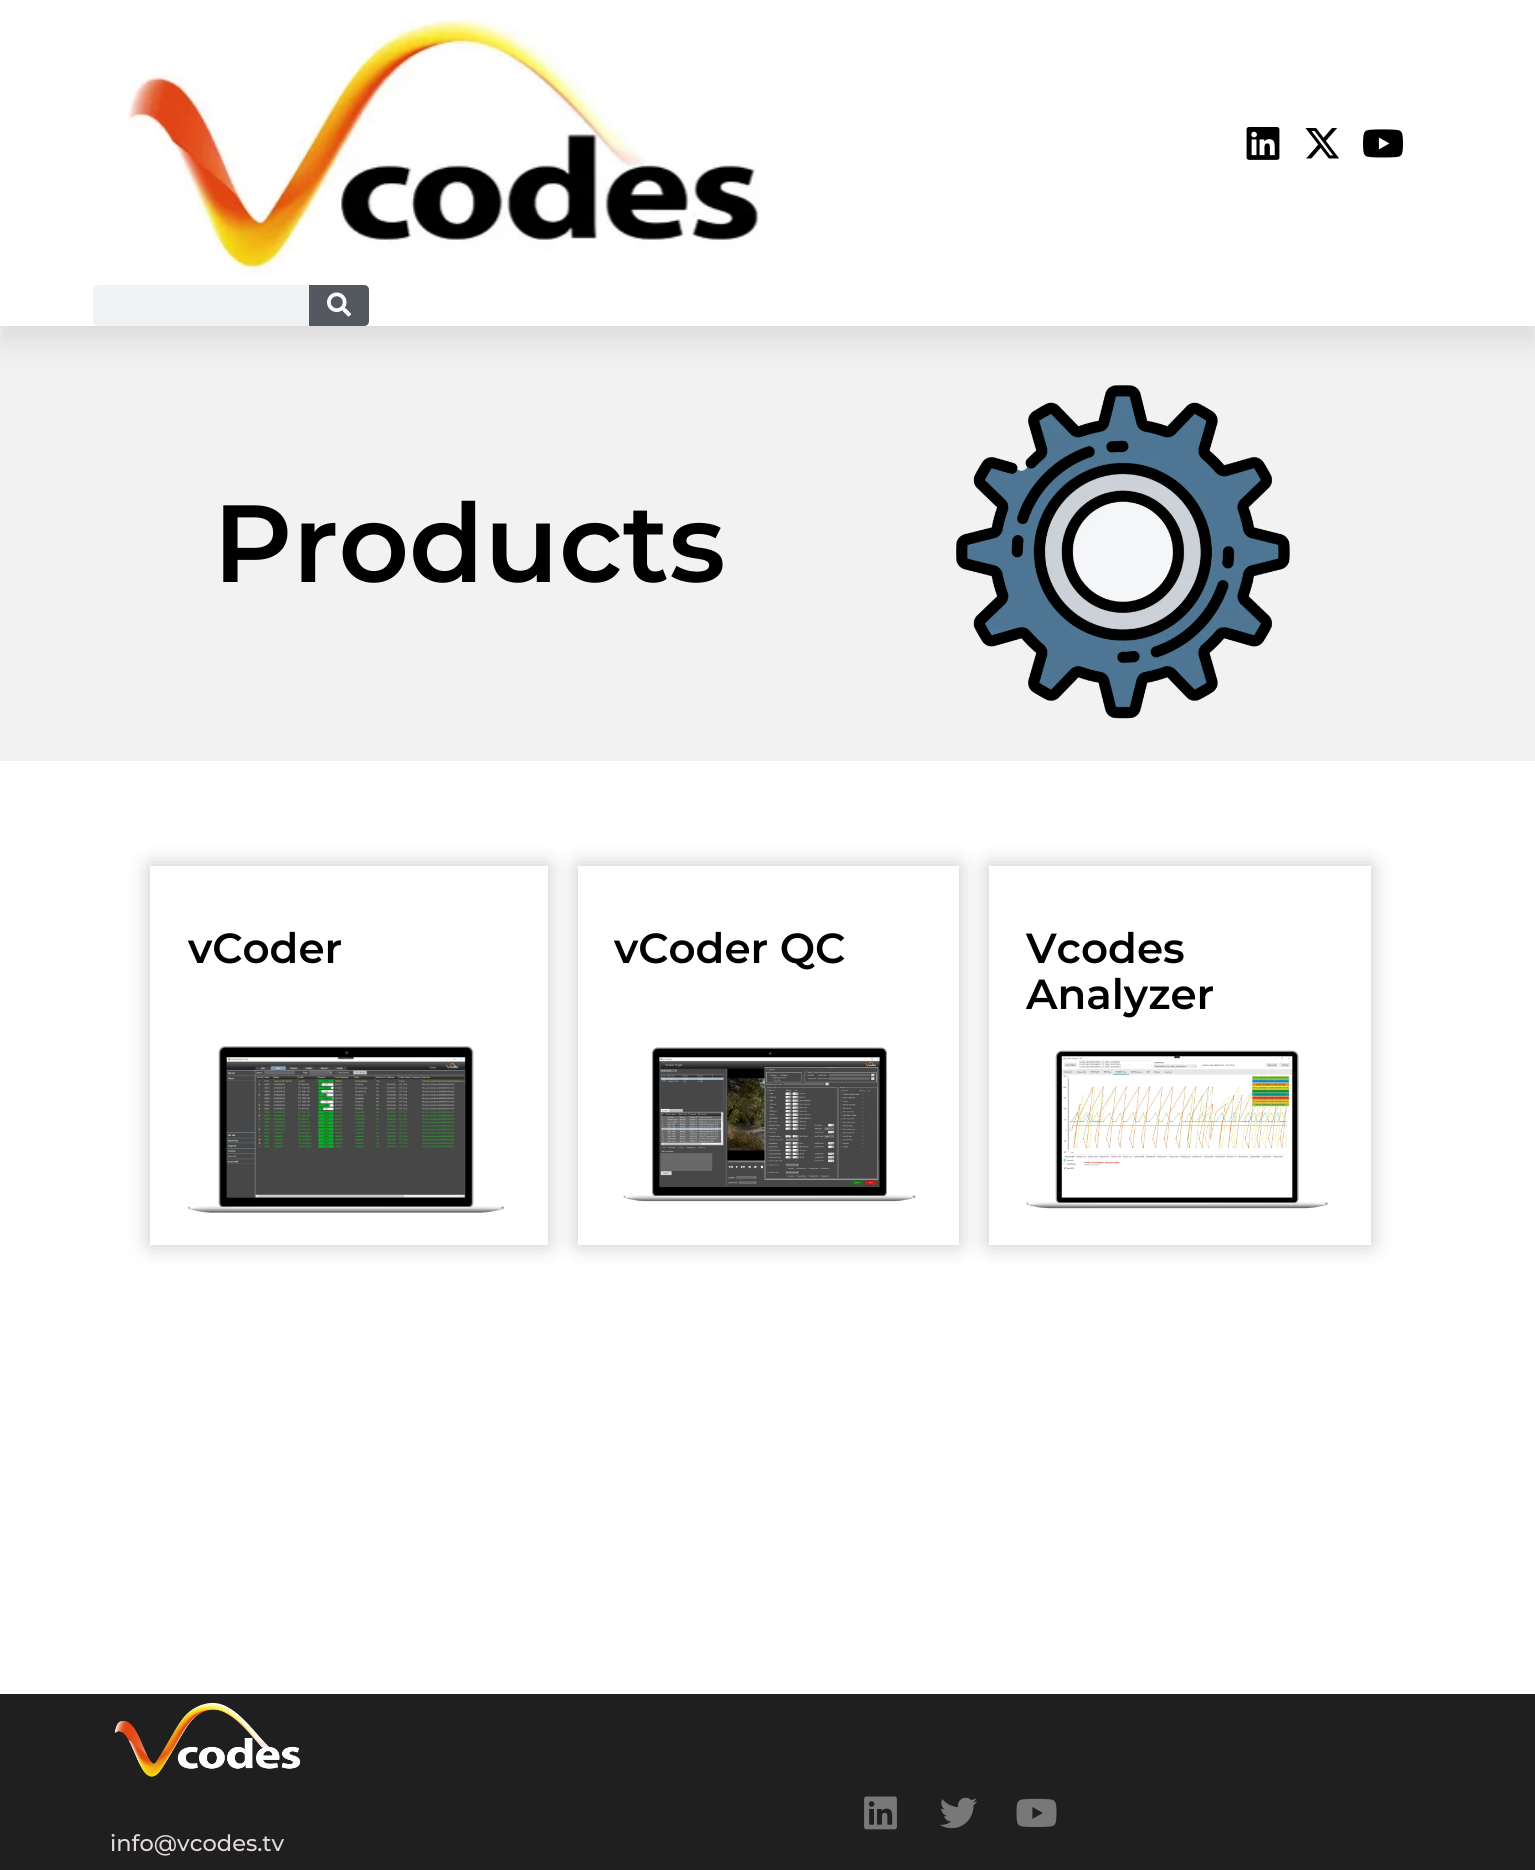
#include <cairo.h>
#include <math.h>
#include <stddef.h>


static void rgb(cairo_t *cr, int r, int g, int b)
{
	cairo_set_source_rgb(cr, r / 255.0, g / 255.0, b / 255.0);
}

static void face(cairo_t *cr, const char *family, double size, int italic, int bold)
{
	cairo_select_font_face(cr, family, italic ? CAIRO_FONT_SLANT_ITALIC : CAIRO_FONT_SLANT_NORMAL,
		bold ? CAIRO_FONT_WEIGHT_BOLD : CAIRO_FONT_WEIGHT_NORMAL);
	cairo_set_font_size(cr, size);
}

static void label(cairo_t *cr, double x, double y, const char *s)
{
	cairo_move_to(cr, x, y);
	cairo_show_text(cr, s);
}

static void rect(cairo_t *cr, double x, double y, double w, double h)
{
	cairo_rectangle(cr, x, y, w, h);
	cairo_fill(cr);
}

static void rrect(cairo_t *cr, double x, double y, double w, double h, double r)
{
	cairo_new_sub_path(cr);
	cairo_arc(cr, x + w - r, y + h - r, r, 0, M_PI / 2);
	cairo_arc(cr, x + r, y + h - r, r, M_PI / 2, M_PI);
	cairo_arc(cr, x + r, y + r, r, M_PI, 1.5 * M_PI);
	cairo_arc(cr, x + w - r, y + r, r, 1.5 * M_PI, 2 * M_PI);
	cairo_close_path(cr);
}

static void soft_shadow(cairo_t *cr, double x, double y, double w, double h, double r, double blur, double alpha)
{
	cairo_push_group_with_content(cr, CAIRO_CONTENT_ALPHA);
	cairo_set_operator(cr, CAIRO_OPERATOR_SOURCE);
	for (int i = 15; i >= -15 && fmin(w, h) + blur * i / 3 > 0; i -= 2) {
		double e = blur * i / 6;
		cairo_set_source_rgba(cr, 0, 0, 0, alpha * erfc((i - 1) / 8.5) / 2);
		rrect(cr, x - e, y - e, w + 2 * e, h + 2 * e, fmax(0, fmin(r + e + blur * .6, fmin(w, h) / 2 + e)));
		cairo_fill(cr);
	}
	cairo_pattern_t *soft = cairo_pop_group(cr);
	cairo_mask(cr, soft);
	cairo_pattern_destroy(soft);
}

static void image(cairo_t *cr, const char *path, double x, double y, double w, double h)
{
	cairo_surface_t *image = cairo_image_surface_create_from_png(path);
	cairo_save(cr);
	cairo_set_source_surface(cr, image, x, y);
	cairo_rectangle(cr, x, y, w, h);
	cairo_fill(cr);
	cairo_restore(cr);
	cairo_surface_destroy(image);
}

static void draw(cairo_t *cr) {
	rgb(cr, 255, 255, 255);
	cairo_paint(cr);
	rgb(cr, 242, 242, 242);
	rect(cr, 0, 326, 1535, 435);
	image(cr, "image5.png", 956, 385, 334, 334);
	rgb(cr, 0, 0, 0);
	soft_shadow(cr, 0, 15, 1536, 326, 0, 15, 0.1);
	rgb(cr, 255, 255, 255);
	rect(cr, 0, 0, 1535, 326);
	image(cr, "image0.png", 127, 17, 634, 259);
	image(cr, "image1.png", 1246, 127, 34, 33);
	image(cr, "image2.png", 1305, 128, 34, 31);
	image(cr, "image3.png", 1363, 129, 40, 29);
	rgb(cr, 241, 242, 243);
	rrect(cr, 93, 285, 276, 41, 5);
	cairo_fill(cr);
	rgb(cr, 84, 89, 95);
	cairo_new_path(cr);
	cairo_move_to(cr, 309, 285);
	cairo_line_to(cr, 364, 285);
	cairo_curve_to(cr, 367, 285, 369, 287, 369, 290);
	cairo_line_to(cr, 369, 321);
	cairo_curve_to(cr, 369, 324, 367, 326, 364, 326);
	cairo_line_to(cr, 309, 326);
	cairo_close_path(cr);
	cairo_fill(cr);
	image(cr, "image4.png", 327, 292, 24, 25);
	face(cr, "Montserrat SemiBold", 109.5, 0, 0);
	rgb(cr, 0, 0, 0);
	label(cr, 213, 582, "Products");
	cairo_save(cr);
	cairo_set_fill_rule(cr, CAIRO_FILL_RULE_EVEN_ODD);
	cairo_new_path(cr);
	cairo_move_to(cr, 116, 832);
	cairo_line_to(cr, 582, 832);
	cairo_line_to(cr, 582, 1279);
	cairo_line_to(cr, 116, 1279);
	cairo_close_path(cr);
	cairo_move_to(cr, 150, 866);
	cairo_line_to(cr, 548, 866);
	cairo_line_to(cr, 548, 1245);
	cairo_line_to(cr, 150, 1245);
	cairo_close_path(cr);
	cairo_clip(cr);
	rgb(cr, 0, 0, 0);
	soft_shadow(cr, 150, 866, 398, 379, 0, 11, 0.22);
	cairo_restore(cr);
	face(cr, "Montserrat SemiBold", 42, 0, 0);
	label(cr, 188, 963, "vCoder");
	image(cr, "image6.png", 187, 1046, 317, 167);
	cairo_save(cr);
	cairo_set_fill_rule(cr, CAIRO_FILL_RULE_EVEN_ODD);
	cairo_new_path(cr);
	cairo_move_to(cr, 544, 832);
	cairo_line_to(cr, 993, 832);
	cairo_line_to(cr, 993, 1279);
	cairo_line_to(cr, 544, 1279);
	cairo_close_path(cr);
	cairo_move_to(cr, 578, 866);
	cairo_line_to(cr, 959, 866);
	cairo_line_to(cr, 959, 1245);
	cairo_line_to(cr, 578, 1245);
	cairo_close_path(cr);
	cairo_clip(cr);
	rgb(cr, 0, 0, 0);
	soft_shadow(cr, 578, 866, 381, 379, 0, 11, 0.22);
	cairo_restore(cr);
	label(cr, 614, 963, "vCoder QC");
	image(cr, "image7.png", 623, 1047, 293, 155);
	cairo_save(cr);
	cairo_set_fill_rule(cr, CAIRO_FILL_RULE_EVEN_ODD);
	cairo_new_path(cr);
	cairo_move_to(cr, 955, 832);
	cairo_line_to(cr, 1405, 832);
	cairo_line_to(cr, 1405, 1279);
	cairo_line_to(cr, 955, 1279);
	cairo_close_path(cr);
	cairo_move_to(cr, 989, 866);
	cairo_line_to(cr, 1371, 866);
	cairo_line_to(cr, 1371, 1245);
	cairo_line_to(cr, 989, 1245);
	cairo_close_path(cr);
	cairo_clip(cr);
	rgb(cr, 0, 0, 0);
	soft_shadow(cr, 989, 866, 382, 379, 0, 11, 0.22);
	cairo_restore(cr);
	label(cr, 1026, 963, "Vcodes");
	label(cr, 1026, 1009, "Analyzer");
	image(cr, "image8.png", 1026, 1050, 302, 159);
	rgb(cr, 31, 31, 31);
	rect(cr, 0, 1694, 1535, 176);
	image(cr, "image9.png", 864, 1796, 33, 34);
	image(cr, "image10.png", 940, 1797, 37, 32);
	image(cr, "image11.png", 1016, 1798, 41, 29);
	image(cr, "image12.png", 115, 1702, 186, 75);
	face(cr, "Montserrat Medium", 22.5, 0, 0);
	rgb(cr, 225, 218, 218);
	label(cr, 110, 1851, "info@vcodes.tv");
}

int main(void) {
	cairo_surface_t *surface = cairo_image_surface_create(CAIRO_FORMAT_RGB24, 1535, 1870);
	cairo_t *cr = cairo_create(surface);
	cairo_font_options_t *options = cairo_font_options_create();
	cairo_font_options_set_hint_metrics(options, CAIRO_HINT_METRICS_OFF);
	cairo_font_options_set_hint_style(options, CAIRO_HINT_STYLE_NONE);
	cairo_set_font_options(cr, options);
	cairo_set_miter_limit(cr, 4);
	draw(cr);
	cairo_surface_write_to_png(surface, "render.png");
	cairo_font_options_destroy(options);
	cairo_destroy(cr);
	cairo_surface_destroy(surface);
	return 0;
}
